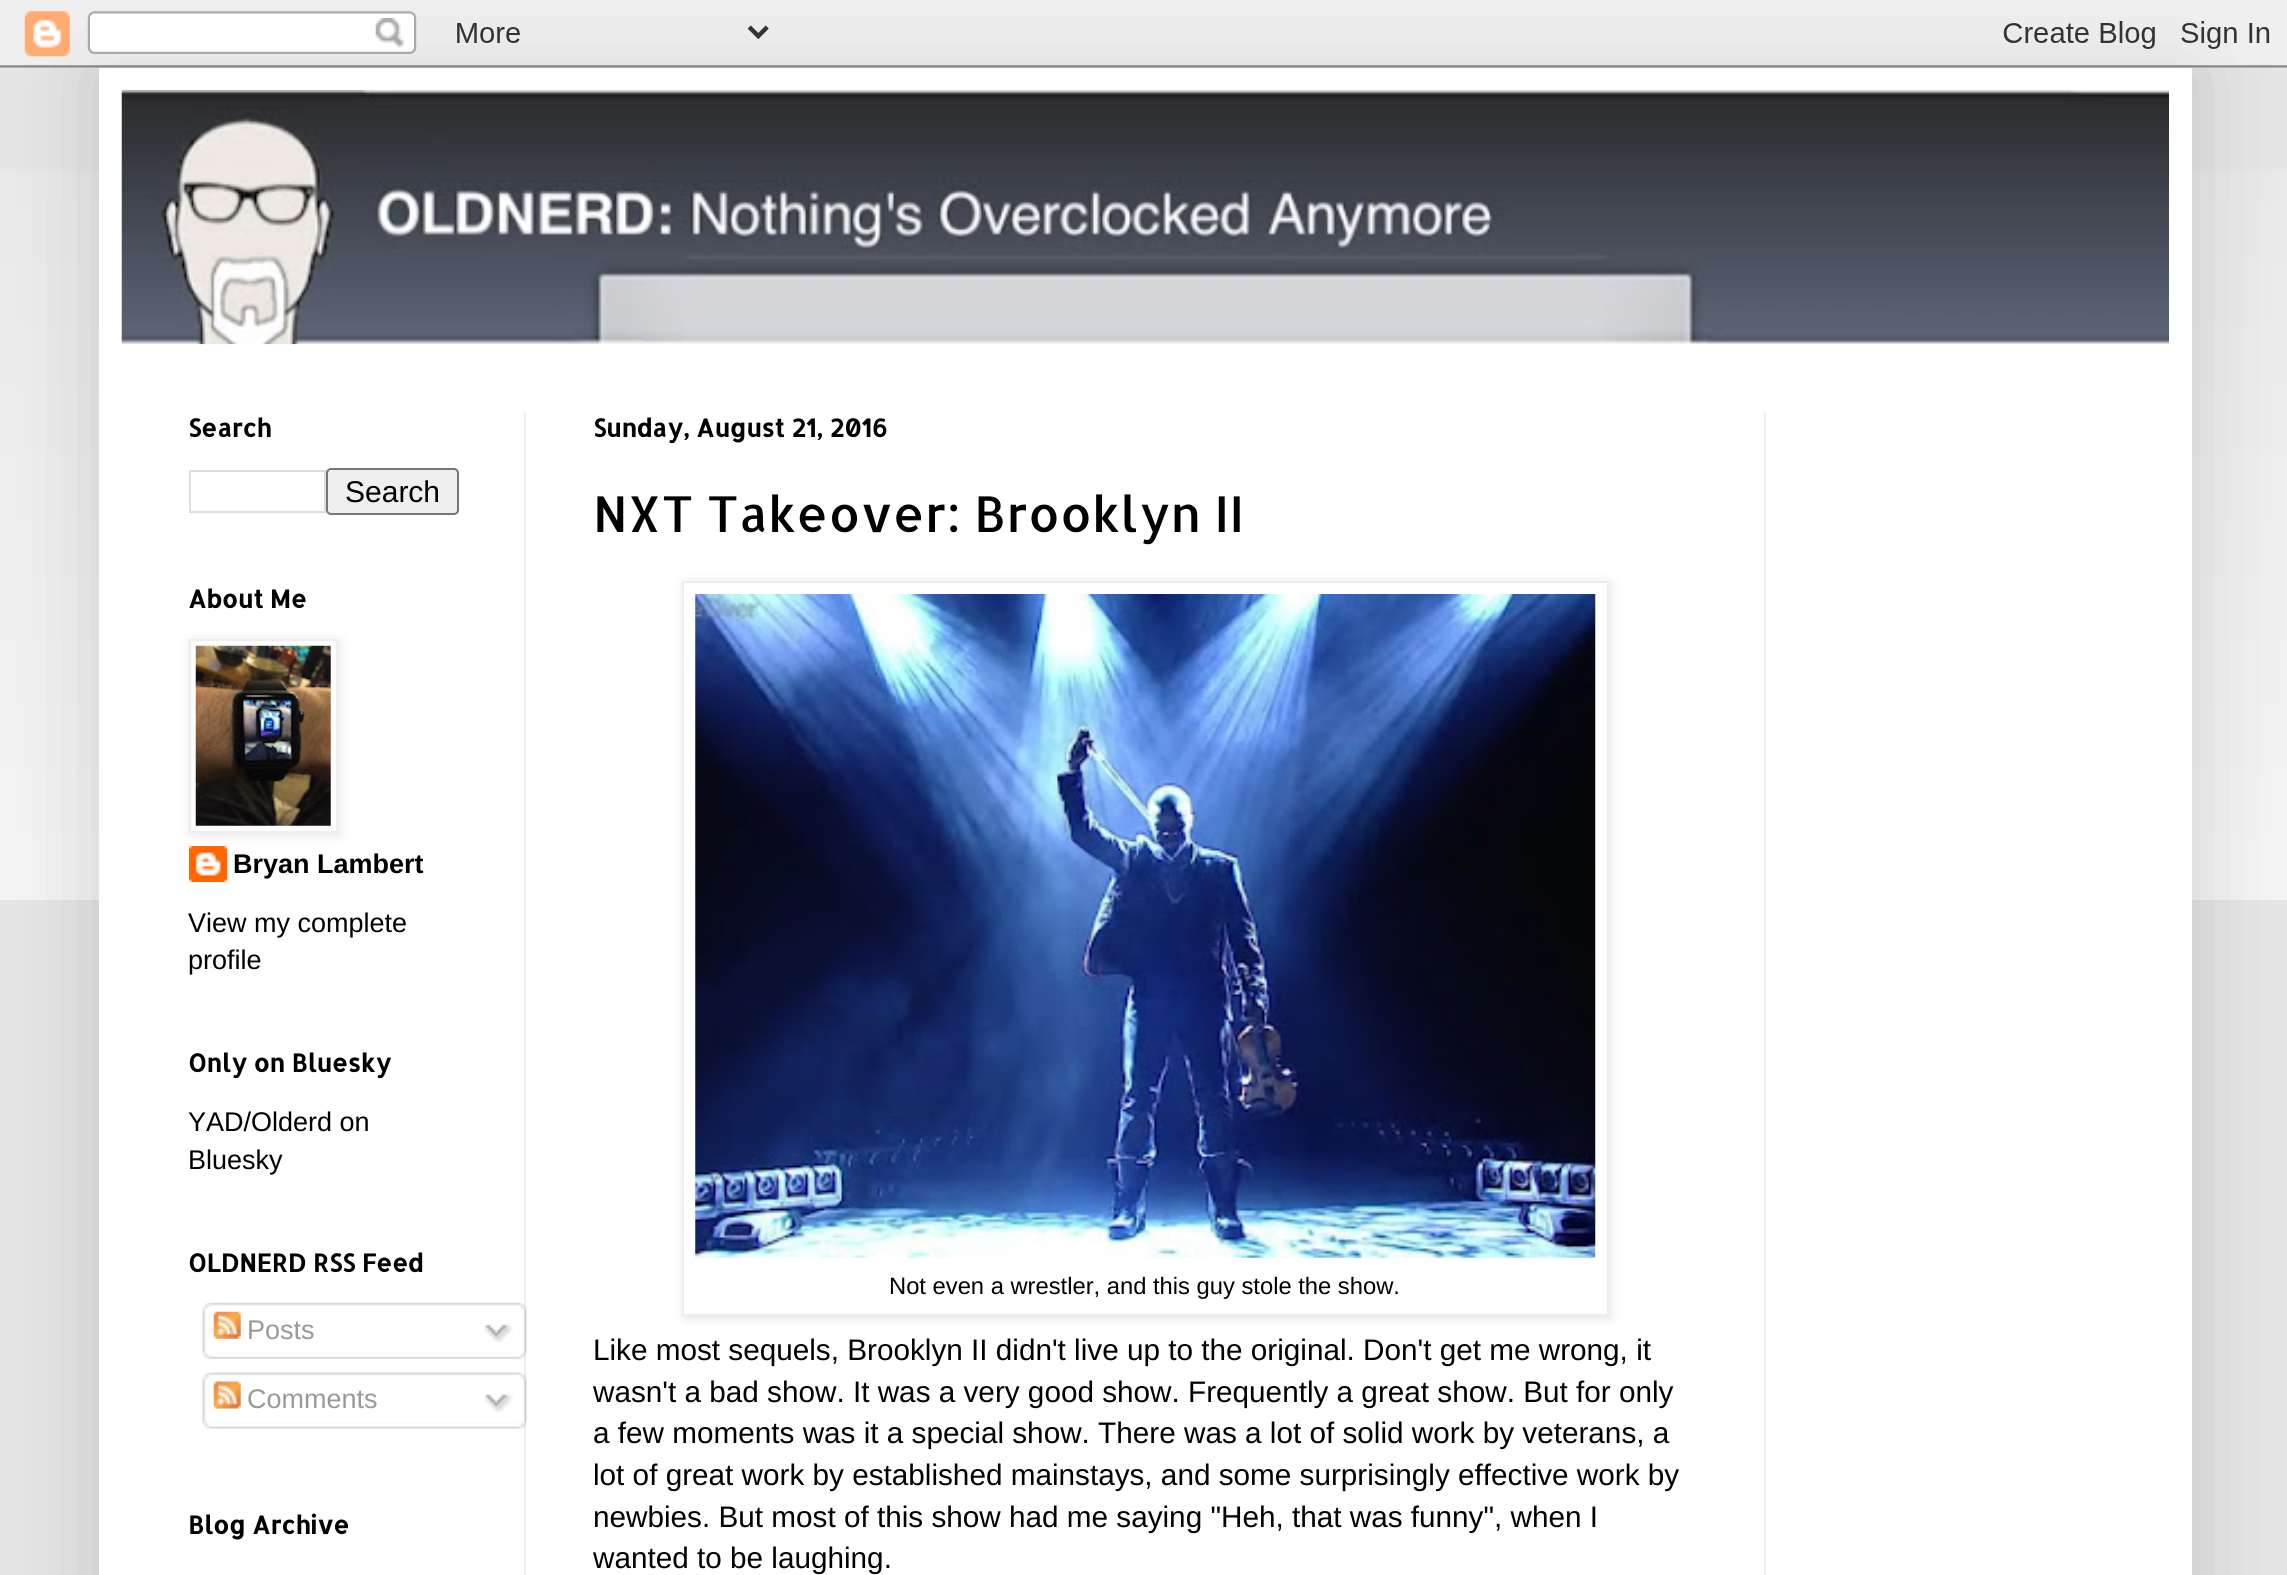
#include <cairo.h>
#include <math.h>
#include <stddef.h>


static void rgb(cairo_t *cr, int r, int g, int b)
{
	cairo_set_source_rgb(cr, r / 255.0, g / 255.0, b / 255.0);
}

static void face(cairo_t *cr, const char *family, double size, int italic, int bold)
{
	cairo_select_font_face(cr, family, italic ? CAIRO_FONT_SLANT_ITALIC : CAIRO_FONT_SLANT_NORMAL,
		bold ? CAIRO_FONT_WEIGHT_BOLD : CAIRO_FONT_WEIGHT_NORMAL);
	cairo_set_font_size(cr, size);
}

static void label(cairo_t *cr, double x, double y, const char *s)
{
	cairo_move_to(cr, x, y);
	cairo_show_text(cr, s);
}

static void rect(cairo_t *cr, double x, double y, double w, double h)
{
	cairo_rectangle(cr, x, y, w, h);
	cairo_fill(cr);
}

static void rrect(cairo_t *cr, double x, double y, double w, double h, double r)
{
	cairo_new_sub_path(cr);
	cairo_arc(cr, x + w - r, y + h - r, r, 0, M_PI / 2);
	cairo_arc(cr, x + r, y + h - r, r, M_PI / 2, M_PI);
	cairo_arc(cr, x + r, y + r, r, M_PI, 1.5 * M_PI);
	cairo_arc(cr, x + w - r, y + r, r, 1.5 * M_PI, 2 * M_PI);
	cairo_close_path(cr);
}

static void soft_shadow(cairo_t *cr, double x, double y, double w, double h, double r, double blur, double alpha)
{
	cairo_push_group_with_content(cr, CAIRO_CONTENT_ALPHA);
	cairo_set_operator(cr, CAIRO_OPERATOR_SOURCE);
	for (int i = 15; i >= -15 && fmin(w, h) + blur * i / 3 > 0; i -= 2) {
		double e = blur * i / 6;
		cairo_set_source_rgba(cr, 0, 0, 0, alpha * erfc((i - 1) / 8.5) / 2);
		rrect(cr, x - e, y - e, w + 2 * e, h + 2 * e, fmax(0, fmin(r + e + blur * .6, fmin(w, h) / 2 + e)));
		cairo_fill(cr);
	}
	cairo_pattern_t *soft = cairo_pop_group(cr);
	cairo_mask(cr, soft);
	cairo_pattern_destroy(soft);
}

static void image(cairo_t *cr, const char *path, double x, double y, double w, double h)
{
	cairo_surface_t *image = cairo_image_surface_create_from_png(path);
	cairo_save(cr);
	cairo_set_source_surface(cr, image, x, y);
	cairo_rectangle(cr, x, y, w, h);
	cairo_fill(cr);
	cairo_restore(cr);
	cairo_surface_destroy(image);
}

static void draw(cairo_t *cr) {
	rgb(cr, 229, 229, 229);
	cairo_paint(cr);
	image(cr, "image1.png", 0, 171, 2287, 729);
	rgb(cr, 0, 0, 0);
	soft_shadow(cr, 99, 68, 2093, 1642, 0, 45, 0.15);
	image(cr, "image0.png", 0, 0, 2287, 68);
	rgb(cr, 255, 255, 255);
	rect(cr, 99, 68, 2093, 1507);
	image(cr, "image2.png", 121, 90, 2048, 255);
	rgb(cr, 238, 238, 238);
	rect(cr, 524, 412, 2, 1163);
	rect(cr, 1764, 412, 2, 1163);
	face(cr, "Allerta", 24.75, 0, 1);
	rgb(cr, 0, 0, 0);
	label(cr, 188, 437, "Search");
	cairo_rectangle(cr, 190, 471, 135, 41);
	rgb(cr, 221, 221, 221);
	cairo_stroke(cr);
	rgb(cr, 239, 239, 239);
	rrect(cr, 327, 469, 131, 45, 4);
	cairo_fill_preserve(cr);
	rgb(cr, 118, 118, 118);
	cairo_stroke(cr);
	face(cr, "Liberation Sans", 30, 0, 0);
	rgb(cr, 0, 0, 0);
	label(cr, 345, 502, "Search");
	face(cr, "Allerta", 24.75, 0, 1);
	label(cr, 188, 608, "About Me");
	image(cr, "image4.png", 189, 846, 39, 36);
	rgb(cr, 0, 0, 0);
	soft_shadow(cr, 191, 641, 149, 194, 0, 5.5, 0.1);
	rgb(cr, 255, 255, 255);
	cairo_rectangle(cr, 190, 640, 147, 192);
	cairo_fill_preserve(cr);
	rgb(cr, 238, 238, 238);
	cairo_stroke(cr);
	image(cr, "image3.png", 195, 645, 136, 181);
	face(cr, "Liberation Sans", 27, 0, 1);
	rgb(cr, 0, 0, 0);
	label(cr, 233, 873, "Bryan Lambert");
	face(cr, "Liberation Sans", 27, 0, 0);
	label(cr, 188, 932, "View my complete");
	label(cr, 188, 969, "profile");
	face(cr, "Allerta", 24.75, 0, 1);
	label(cr, 188, 1072, "Only on Bluesky");
	face(cr, "Liberation Sans", 27, 0, 0);
	label(cr, 188, 1131, "YAD/Olderd on");
	label(cr, 188, 1169, "Bluesky");
	face(cr, "Allerta", 24.75, 0, 1);
	label(cr, 188, 1272, "OLDNERD RSS Feed");
	image(cr, "image5.png", 202, 1302, 325, 51);
	image(cr, "image6.png", 213, 1311, 28, 28);
	face(cr, "Liberation Sans", 27, 0, 0);
	rgb(cr, 153, 153, 153);
	label(cr, 247, 1339, "Posts");
	image(cr, "image7.png", 484, 1323, 29, 20);
	image(cr, "image8.png", 202, 1352, 325, 7);
	image(cr, "image9.png", 202, 1372, 325, 50);
	image(cr, "image10.png", 213, 1381, 28, 28);
	label(cr, 247, 1408, "Comments");
	image(cr, "image11.png", 484, 1393, 29, 20);
	image(cr, "image12.png", 202, 1422, 325, 7);
	face(cr, "Allerta", 24.75, 0, 1);
	rgb(cr, 0, 0, 0);
	label(cr, 188, 1534, "Blog Archive");
	label(cr, 593, 437, "Sunday, August 21, 2016");
	face(cr, "Allerta", 49.5, 0, 0);
	label(cr, 593, 532, "NXT Takeover: Brooklyn II");
	rgb(cr, 0, 0, 0);
	soft_shadow(cr, 684, 583, 927, 736, 0, 5.5, 0.1);
	rgb(cr, 255, 255, 255);
	cairo_rectangle(cr, 683, 582, 925, 733);
	cairo_fill_preserve(cr);
	rgb(cr, 238, 238, 238);
	cairo_stroke(cr);
	image(cr, "image13.png", 695, 594, 901, 664);
	face(cr, "Liberation Sans", 23.75, 0, 0);
	rgb(cr, 0, 0, 0);
	label(cr, 889, 1294, "Not even a wrestler, and this guy stole the show.");
	face(cr, "Liberation Sans", 29.7, 0, 0);
	label(cr, 593, 1360, "Like most sequels, Brooklyn II didn't live up to the original. Don't get me wrong, it");
	label(cr, 593, 1402, "wasn't a bad show. It was a very good show. Frequently a great show. But for only");
	label(cr, 593, 1443, "a few moments was it a special show. There was a lot of solid work by veterans, a");
	label(cr, 593, 1485, "lot of great work by established mainstays, and some surprisingly effective work by");
	label(cr, 593, 1527, "newbies. But most of this show had me saying \"Heh, that was funny\", when I");
	label(cr, 593, 1568, "wanted to be laughing.");
}

int main(void) {
	cairo_surface_t *surface = cairo_image_surface_create(CAIRO_FORMAT_RGB24, 2287, 1575);
	cairo_t *cr = cairo_create(surface);
	cairo_font_options_t *options = cairo_font_options_create();
	cairo_font_options_set_hint_metrics(options, CAIRO_HINT_METRICS_OFF);
	cairo_font_options_set_hint_style(options, CAIRO_HINT_STYLE_NONE);
	cairo_set_font_options(cr, options);
	cairo_set_miter_limit(cr, 4);
	draw(cr);
	cairo_surface_write_to_png(surface, "render.png");
	cairo_font_options_destroy(options);
	cairo_destroy(cr);
	cairo_surface_destroy(surface);
	return 0;
}
